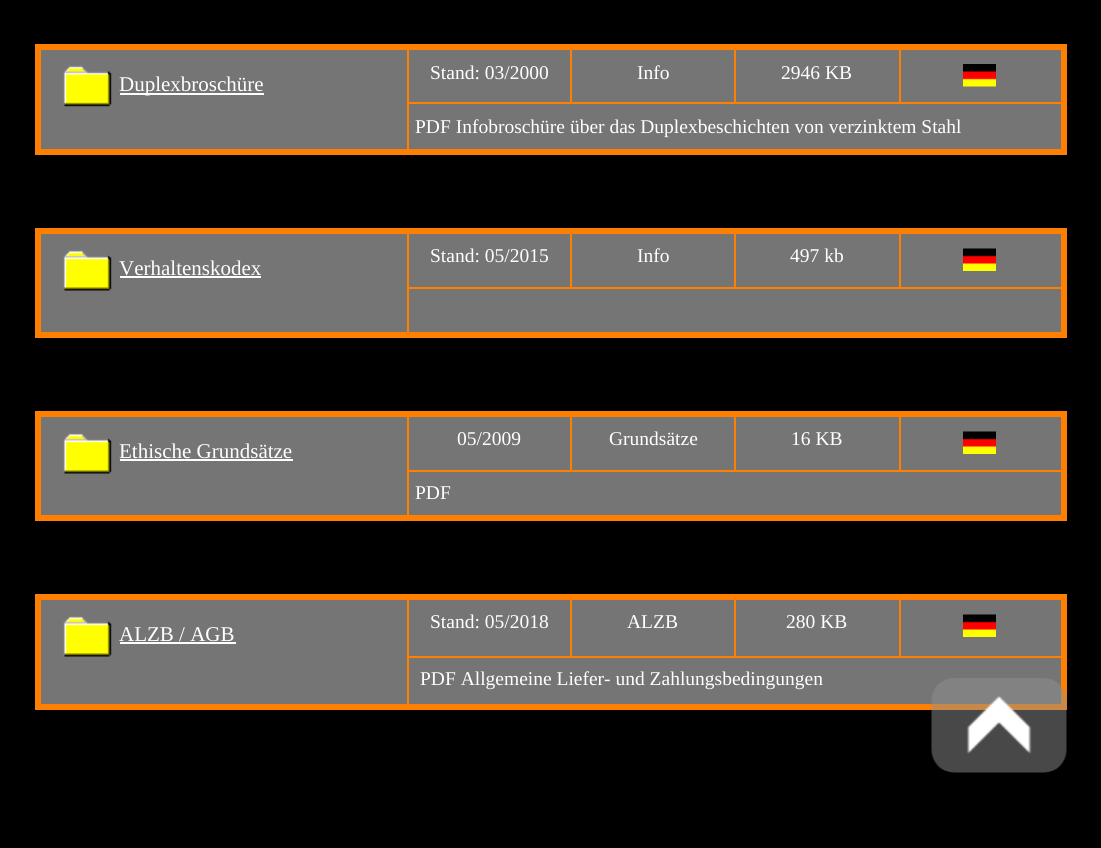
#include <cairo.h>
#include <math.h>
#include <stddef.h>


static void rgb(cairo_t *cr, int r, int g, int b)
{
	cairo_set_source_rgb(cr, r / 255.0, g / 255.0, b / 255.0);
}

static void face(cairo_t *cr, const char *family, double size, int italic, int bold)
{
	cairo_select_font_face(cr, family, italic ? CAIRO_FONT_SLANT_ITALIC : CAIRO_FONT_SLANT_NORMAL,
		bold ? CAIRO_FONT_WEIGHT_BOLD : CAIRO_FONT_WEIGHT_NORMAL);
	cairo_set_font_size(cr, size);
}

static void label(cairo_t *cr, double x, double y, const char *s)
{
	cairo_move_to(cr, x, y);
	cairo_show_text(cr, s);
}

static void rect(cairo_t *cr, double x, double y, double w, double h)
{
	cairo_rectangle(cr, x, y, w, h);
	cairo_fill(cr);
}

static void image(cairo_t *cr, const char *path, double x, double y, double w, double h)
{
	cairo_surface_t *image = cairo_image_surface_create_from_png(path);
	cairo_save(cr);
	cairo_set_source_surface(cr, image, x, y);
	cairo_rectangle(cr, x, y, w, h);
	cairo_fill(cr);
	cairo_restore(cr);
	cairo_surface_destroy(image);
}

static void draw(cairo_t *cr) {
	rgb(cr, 0, 0, 0);
	cairo_paint(cr);
	rgb(cr, 117, 117, 117);
	rect(cr, 41, 50, 1020, 99);
	rgb(cr, 255, 128, 0);
	rect(cr, 407, 102, 657, 2);
	rect(cr, 570, 47, 2, 57);
	rect(cr, 734, 47, 2, 57);
	rect(cr, 899, 47, 2, 57);
	rect(cr, 407, 47, 2, 105);
	rect(cr, 35, 44, 1032, 6);
	rect(cr, 1061, 44, 6, 111);
	rect(cr, 35, 149, 1032, 6);
	rect(cr, 35, 44, 6, 111);
	face(cr, "Liberation Serif", 19.5, 0, 0);
	rgb(cr, 255, 255, 255);
	label(cr, 430, 79, "Stand: 03/2000");
	label(cr, 637, 79, "Info");
	label(cr, 781, 79, "2946 KB");
	image(cr, "image0.png", 963, 64, 33, 23);
	image(cr, "image1.png", 63, 65, 49, 42);
	rect(cr, 120, 93, 144, 2);
	face(cr, "Liberation Serif", 21, 0, 0);
	label(cr, 119, 91, "Duplexbroschüre");
	face(cr, "Liberation Serif", 19.5, 0, 0);
	label(cr, 415, 133, "PDF Infobroschüre über das Duplexbeschichten von verzinktem Stahl");
	rgb(cr, 117, 117, 117);
	rect(cr, 41, 234, 1020, 98);
	rgb(cr, 255, 128, 0);
	rect(cr, 407, 287, 657, 2);
	rect(cr, 407, 230, 2, 106);
	rect(cr, 570, 230, 2, 58);
	rect(cr, 734, 230, 2, 58);
	rect(cr, 899, 230, 2, 58);
	rect(cr, 35, 228, 1032, 6);
	rect(cr, 1061, 228, 6, 110);
	rect(cr, 35, 332, 1032, 6);
	rect(cr, 35, 228, 6, 110);
	rgb(cr, 255, 255, 255);
	label(cr, 430, 262, "Stand: 05/2015");
	label(cr, 637, 262, "Info");
	label(cr, 790, 262, "497 kb");
	image(cr, "image2.png", 963, 248, 33, 23);
	image(cr, "image3.png", 63, 250, 49, 41);
	face(cr, "Liberation Serif", 21, 0, 0);
	label(cr, 119, 275, "Verhaltenskodex");
	rect(cr, 120, 276, 141, 2);
	rgb(cr, 117, 117, 117);
	rect(cr, 41, 417, 1020, 98);
	rgb(cr, 255, 128, 0);
	rect(cr, 407, 470, 657, 2);
	rect(cr, 570, 413, 2, 58);
	rect(cr, 734, 413, 2, 58);
	rect(cr, 899, 413, 2, 58);
	rect(cr, 407, 413, 2, 106);
	rect(cr, 35, 411, 1032, 6);
	rect(cr, 1061, 411, 6, 110);
	rect(cr, 35, 515, 1032, 6);
	rect(cr, 35, 411, 6, 110);
	face(cr, "Liberation Serif", 19.5, 0, 0);
	rgb(cr, 255, 255, 255);
	label(cr, 457, 445, "05/2009");
	label(cr, 609, 445, "Grundsätze");
	label(cr, 791, 445, "16 KB");
	image(cr, "image2.png", 963, 431, 33, 23);
	image(cr, "image3.png", 63, 433, 49, 41);
	face(cr, "Liberation Serif", 21, 0, 0);
	label(cr, 119, 458, "Ethische Grundsätze");
	rect(cr, 120, 459, 173, 2);
	face(cr, "Liberation Serif", 19.5, 0, 0);
	label(cr, 415, 499, "PDF");
	rgb(cr, 117, 117, 117);
	rect(cr, 41, 600, 1020, 104);
	rgb(cr, 255, 128, 0);
	rect(cr, 407, 656, 657, 2);
	rect(cr, 570, 596, 2, 61);
	rect(cr, 734, 596, 2, 61);
	rect(cr, 899, 596, 2, 61);
	rect(cr, 407, 596, 2, 111);
	rect(cr, 35, 594, 1032, 6);
	rect(cr, 1061, 594, 6, 116);
	rect(cr, 35, 704, 1032, 6);
	rect(cr, 35, 594, 6, 116);
	rgb(cr, 255, 255, 255);
	label(cr, 430, 628, "Stand: 05/2018");
	label(cr, 627, 628, "ALZB");
	label(cr, 786, 628, "280 KB");
	image(cr, "image2.png", 963, 614, 33, 23);
	image(cr, "image3.png", 63, 616, 49, 41);
	face(cr, "Liberation Serif", 21, 0, 0);
	label(cr, 119, 641, "ALZB / AGB");
	rect(cr, 120, 642, 116, 2);
	face(cr, "Liberation Serif", 19.5, 0, 0);
	label(cr, 420, 685, "PDF Allgemeine Liefer- und Zahlungsbedingungen");
	image(cr, "image4.png", 931, 678, 136, 95);
}

int main(void) {
	cairo_surface_t *surface = cairo_image_surface_create(CAIRO_FORMAT_RGB24, 1101, 848);
	cairo_t *cr = cairo_create(surface);
	cairo_font_options_t *options = cairo_font_options_create();
	cairo_font_options_set_hint_metrics(options, CAIRO_HINT_METRICS_OFF);
	cairo_font_options_set_hint_style(options, CAIRO_HINT_STYLE_NONE);
	cairo_set_font_options(cr, options);
	cairo_set_miter_limit(cr, 4);
	draw(cr);
	cairo_surface_write_to_png(surface, "render.png");
	cairo_font_options_destroy(options);
	cairo_destroy(cr);
	cairo_surface_destroy(surface);
	return 0;
}
